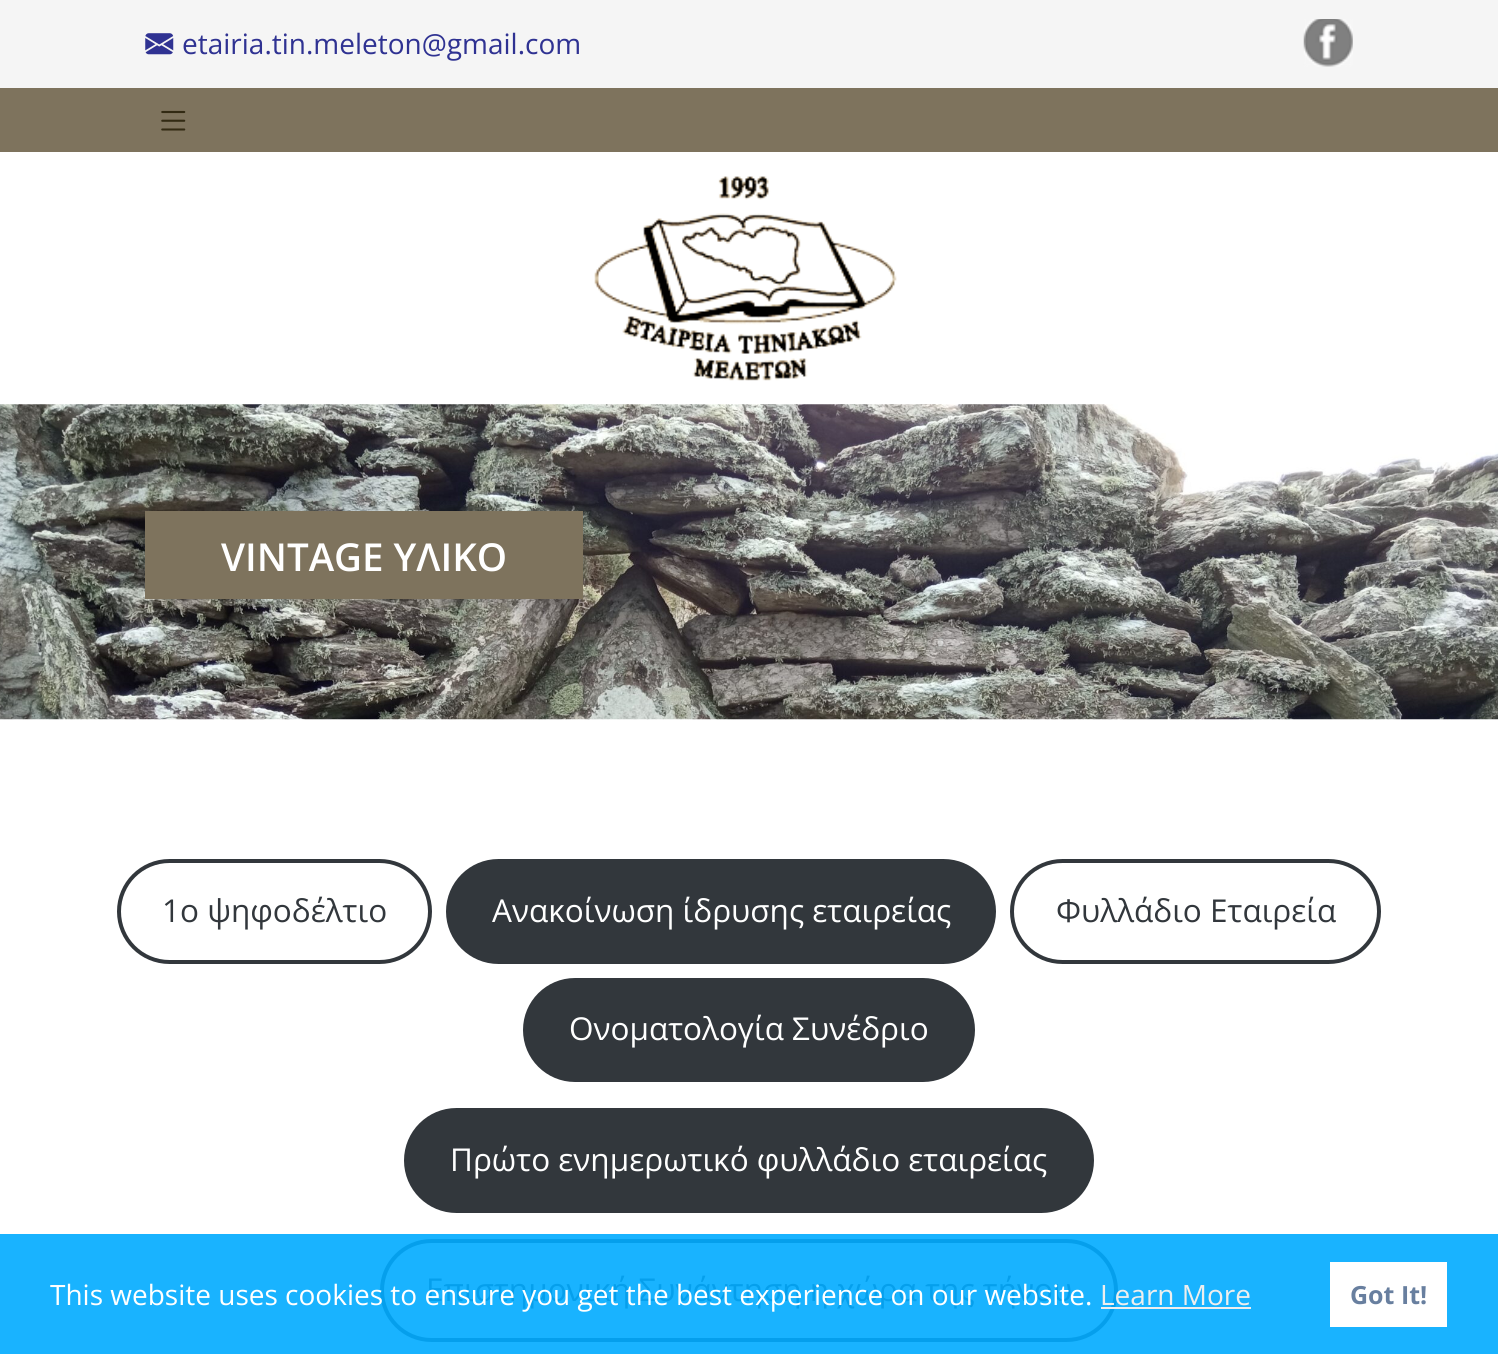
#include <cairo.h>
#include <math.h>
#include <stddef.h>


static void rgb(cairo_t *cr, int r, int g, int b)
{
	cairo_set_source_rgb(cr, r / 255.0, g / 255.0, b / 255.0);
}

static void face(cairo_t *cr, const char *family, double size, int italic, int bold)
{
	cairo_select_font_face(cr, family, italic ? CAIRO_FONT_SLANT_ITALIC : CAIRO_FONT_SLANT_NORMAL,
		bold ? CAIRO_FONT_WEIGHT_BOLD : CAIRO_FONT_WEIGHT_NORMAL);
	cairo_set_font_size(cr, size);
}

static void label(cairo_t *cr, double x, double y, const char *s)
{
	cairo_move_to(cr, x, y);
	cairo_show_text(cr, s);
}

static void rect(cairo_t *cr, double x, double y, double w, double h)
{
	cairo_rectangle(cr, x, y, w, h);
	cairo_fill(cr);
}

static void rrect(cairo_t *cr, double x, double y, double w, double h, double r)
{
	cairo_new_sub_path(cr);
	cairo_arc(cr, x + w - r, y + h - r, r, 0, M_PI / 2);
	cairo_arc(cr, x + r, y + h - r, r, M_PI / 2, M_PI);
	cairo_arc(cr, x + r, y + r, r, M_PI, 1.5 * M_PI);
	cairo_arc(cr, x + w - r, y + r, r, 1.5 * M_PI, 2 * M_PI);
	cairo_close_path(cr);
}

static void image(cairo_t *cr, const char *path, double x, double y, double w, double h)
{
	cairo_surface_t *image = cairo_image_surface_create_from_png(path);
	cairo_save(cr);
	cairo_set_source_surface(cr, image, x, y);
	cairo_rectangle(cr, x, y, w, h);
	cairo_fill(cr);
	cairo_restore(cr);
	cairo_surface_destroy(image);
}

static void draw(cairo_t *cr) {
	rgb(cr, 255, 255, 255);
	cairo_paint(cr);
	rgb(cr, 25, 179, 255);
	rect(cr, 0, 1234, 1498, 120);
	rgb(cr, 245, 245, 245);
	rect(cr, 0, 0, 1498, 88);
	image(cr, "image0.png", 145, 33, 29, 22);
	face(cr, "Open Sans", 28, 0, 0);
	rgb(cr, 47, 50, 146);
	label(cr, 182, 54, "etairia.tin.meleton@gmail.com");
	image(cr, "image1.png", 1303, 19, 50, 48);
	rgb(cr, 126, 115, 93);
	rect(cr, 0, 88, 1498, 64);
	image(cr, "image2.png", 161, 110, 25, 21);
	image(cr, "image3.png", 594, 176, 303, 205);
	image(cr, "image4.png", 0, 404, 1498, 316);
	rect(cr, 145, 511, 438, 88);
	face(cr, "Open Sans SemiBold", 38.5, 0, 0);
	rgb(cr, 255, 255, 255);
	label(cr, 221, 571, "VINTAGE ΥΛΙΚΟ");
	rrect(cr, 119, 861, 311, 101, 50.5);
	rgb(cr, 50, 55, 60);
	cairo_set_line_width(cr, 4);
	cairo_stroke(cr);
	face(cr, "Open Sans", 31.5, 0, 0);
	label(cr, 162, 922, "1ο ψηφοδέλτιο");
	rrect(cr, 446, 859, 550, 105, 52.5);
	cairo_fill(cr);
	rgb(cr, 255, 255, 255);
	label(cr, 492, 922, "Ανακοίνωση ίδρυσης εταιρείας");
	rrect(cr, 1012, 861, 367, 101, 50.5);
	rgb(cr, 50, 55, 60);
	cairo_stroke(cr);
	label(cr, 1056, 922, "Φυλλάδιο Εταιρεία");
	rrect(cr, 523, 978, 452, 104, 52);
	cairo_fill(cr);
	rgb(cr, 255, 255, 255);
	label(cr, 569, 1040, "Ονοματολογία Συνέδριο");
	rgb(cr, 50, 55, 60);
	rrect(cr, 404, 1108, 690, 105, 52.5);
	cairo_fill(cr);
	rgb(cr, 255, 255, 255);
	label(cr, 450, 1171, "Πρώτο ενημερωτικό φυλλάδιο εταιρείας");
	rrect(cr, 382, 1241, 734, 99, 49.5);
	rgb(cr, 5, 159, 236);
	cairo_stroke(cr);
	label(cr, 426, 1301, "Επιστημονική Συνάντηση η χώρα της τήνου");
	face(cr, "Open Sans", 28, 0, 0);
	rgb(cr, 255, 255, 255);
	label(cr, 50, 1305, "This website uses cookies to ensure you get the best experience on our website.");
	rgb(cr, 238, 238, 238);
	label(cr, 1100, 1305, "Learn More");
	rect(cr, 1101, 1307, 150, 2);
	rgb(cr, 255, 255, 255);
	rect(cr, 1330, 1262, 117, 65);
	face(cr, "Open Sans", 25, 0, 1);
	rgb(cr, 104, 127, 159);
	label(cr, 1350, 1304, "Got It!");
}

int main(void) {
	cairo_surface_t *surface = cairo_image_surface_create(CAIRO_FORMAT_RGB24, 1498, 1354);
	cairo_t *cr = cairo_create(surface);
	cairo_font_options_t *options = cairo_font_options_create();
	cairo_font_options_set_hint_metrics(options, CAIRO_HINT_METRICS_OFF);
	cairo_font_options_set_hint_style(options, CAIRO_HINT_STYLE_NONE);
	cairo_set_font_options(cr, options);
	cairo_set_miter_limit(cr, 4);
	draw(cr);
	cairo_surface_write_to_png(surface, "render.png");
	cairo_font_options_destroy(options);
	cairo_destroy(cr);
	cairo_surface_destroy(surface);
	return 0;
}
